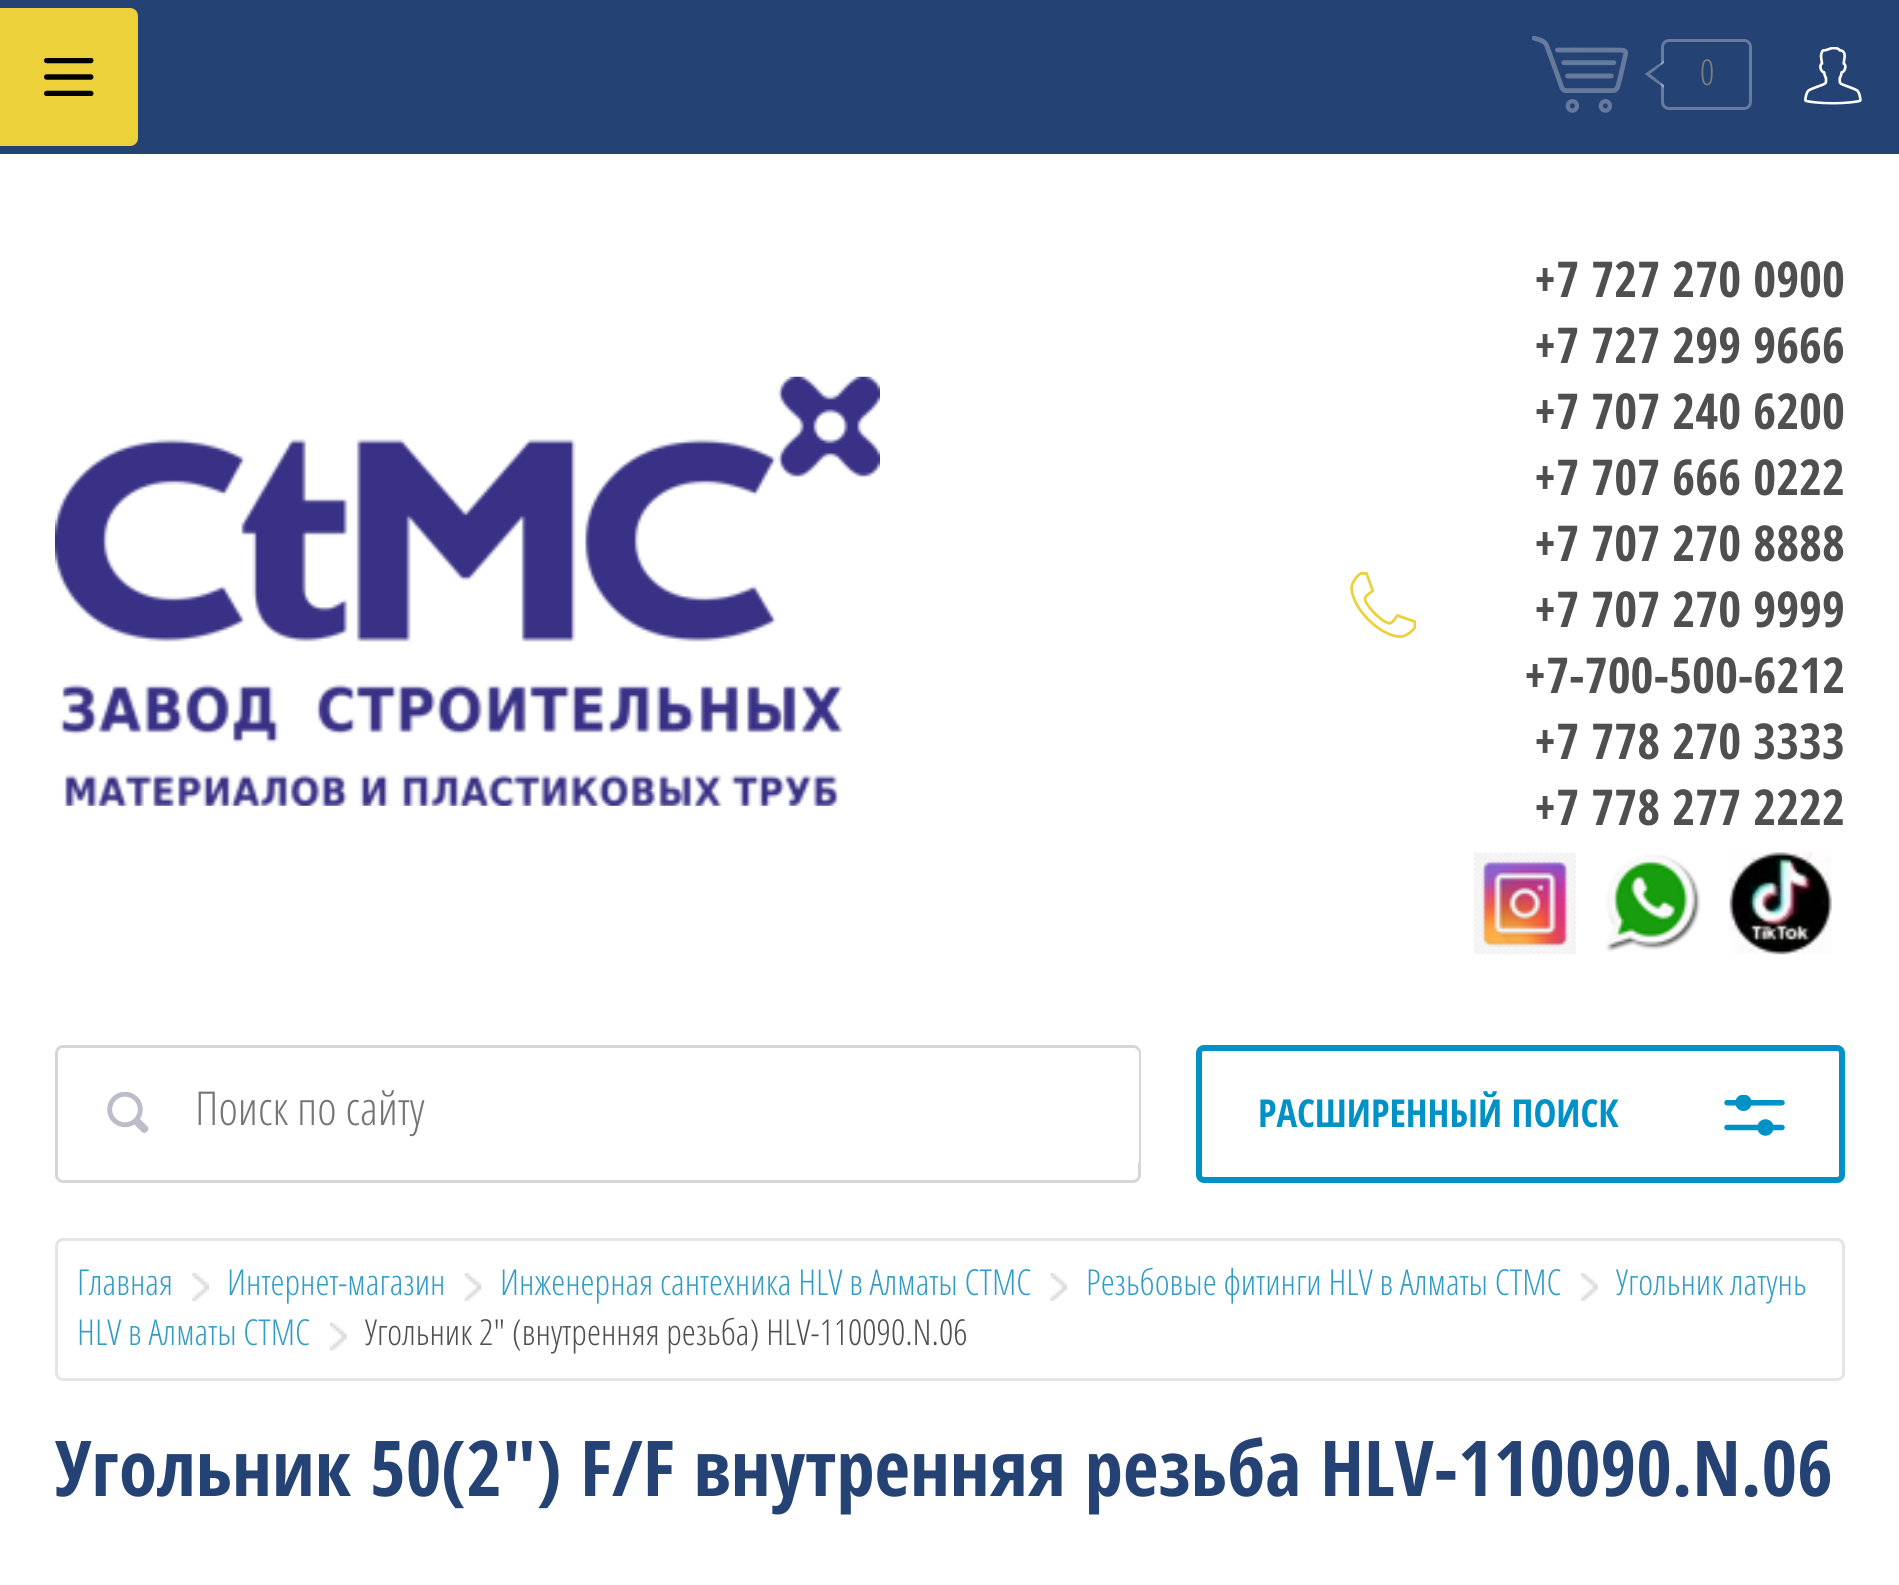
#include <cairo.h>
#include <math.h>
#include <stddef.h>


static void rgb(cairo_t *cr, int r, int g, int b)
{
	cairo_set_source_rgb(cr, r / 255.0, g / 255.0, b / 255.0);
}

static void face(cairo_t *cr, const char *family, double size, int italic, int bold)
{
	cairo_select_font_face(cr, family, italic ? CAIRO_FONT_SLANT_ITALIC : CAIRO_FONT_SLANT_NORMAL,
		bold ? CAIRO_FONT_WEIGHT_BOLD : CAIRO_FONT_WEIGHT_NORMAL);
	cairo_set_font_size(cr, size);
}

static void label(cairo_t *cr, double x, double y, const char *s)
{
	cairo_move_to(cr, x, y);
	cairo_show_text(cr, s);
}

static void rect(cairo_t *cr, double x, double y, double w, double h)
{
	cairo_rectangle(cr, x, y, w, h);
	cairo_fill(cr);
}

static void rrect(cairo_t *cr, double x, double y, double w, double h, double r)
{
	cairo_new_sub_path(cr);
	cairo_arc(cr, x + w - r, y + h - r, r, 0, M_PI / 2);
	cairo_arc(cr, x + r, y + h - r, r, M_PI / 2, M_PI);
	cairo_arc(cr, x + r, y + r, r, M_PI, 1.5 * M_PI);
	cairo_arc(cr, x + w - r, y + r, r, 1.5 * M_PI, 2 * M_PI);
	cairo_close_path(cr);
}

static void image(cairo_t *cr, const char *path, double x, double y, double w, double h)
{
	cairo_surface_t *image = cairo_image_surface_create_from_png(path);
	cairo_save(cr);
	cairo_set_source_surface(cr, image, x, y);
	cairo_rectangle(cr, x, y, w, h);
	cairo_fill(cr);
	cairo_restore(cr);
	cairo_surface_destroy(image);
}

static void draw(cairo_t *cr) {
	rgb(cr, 255, 255, 255);
	cairo_paint(cr);
	rgb(cr, 37, 66, 116);
	rect(cr, 0, 0, 1899, 154);
	rgb(cr, 236, 209, 59);
	cairo_new_path(cr);
	cairo_move_to(cr, 0, 8);
	cairo_line_to(cr, 130, 8);
	cairo_curve_to(cr, 134.5, 8, 138, 11.5, 138, 16);
	cairo_line_to(cr, 138, 138);
	cairo_curve_to(cr, 138, 142.5, 134.5, 146, 130, 146);
	cairo_line_to(cr, 0, 146);
	cairo_close_path(cr);
	cairo_fill(cr);
	image(cr, "image0.png", 44, 58, 50, 38);
	image(cr, "image1.png", 1532, 36, 96, 77);
	rrect(cr, 1662.5, 40.5, 88, 68, 6.5);
	rgb(cr, 102, 123, 158);
	cairo_set_line_width(cr, 3);
	cairo_stroke(cr);
	cairo_set_source_rgba(cr, 1, 1, 1, 0.3);
	cairo_new_path(cr);
	cairo_move_to(cr, 1664, 60.5);
	cairo_line_to(cr, 1664, 88);
	cairo_line_to(cr, 1644.5, 74);
	cairo_close_path(cr);
	cairo_fill(cr);
	face(cr, "Open Sans Light", 35.75, 0, 0);
	rgb(cr, 126, 126, 126);
	label(cr, 1700, 85, "0");
	rgb(cr, 37, 66, 116);
	cairo_new_path(cr);
	cairo_move_to(cr, 1664, 63);
	cairo_line_to(cr, 1664, 85);
	cairo_line_to(cr, 1650, 74);
	cairo_close_path(cr);
	cairo_fill(cr);
	image(cr, "image2.png", 1804, 47, 58, 58);
	image(cr, "image3.png", 55, 376, 825, 430);
	image(cr, "image4.png", 1350, 572, 66, 66);
	face(cr, "Open Sans Condensed", 49.5, 0, 1);
	rgb(cr, 80, 79, 79);
	label(cr, 1534, 297, "+7 727 270 0900");
	label(cr, 1534, 363, "+7 727 299 9666");
	label(cr, 1534, 429, "+7 707 240 6200");
	label(cr, 1534, 495, "+7 707 666 0222");
	label(cr, 1534, 561, "+7 707 270 8888");
	label(cr, 1534, 627, "+7 707 270 9999");
	label(cr, 1524, 693, "+7-700-500-6212");
	label(cr, 1534, 759, "+7 778 270 3333");
	label(cr, 1534, 825, "+7 778 277 2222");
	image(cr, "image5.png", 1474, 852, 102, 103);
	image(cr, "image6.png", 1605, 854, 96, 98);
	image(cr, "image7.png", 1729, 852, 103, 103);
	rrect(cr, 56.5, 1046.5, 1083, 135, 6.5);
	rgb(cr, 214, 214, 214);
	cairo_stroke(cr);
	image(cr, "image8.png", 107, 1092, 42, 41);
	rgb(cr, 255, 255, 255);
	rrect(cr, 195, 1048, 944, 118, 6);
	cairo_fill(cr);
	face(cr, "Open Sans Light", 46.75, 0, 0);
	rgb(cr, 117, 117, 117);
	label(cr, 195, 1125, "Поиск по сайту");
	rrect(cr, 1199, 1048, 643, 132, 5);
	rgb(cr, 0, 145, 199);
	cairo_set_line_width(cr, 6);
	cairo_stroke(cr);
	face(cr, "Open Sans Condensed", 38.5, 0, 1);
	label(cr, 1258, 1127, "РАСШИРЕННЫЙ ПОИСК");
	image(cr, "image9.png", 1724, 1095, 61, 41);
	rrect(cr, 56.5, 1239.5, 1787, 140, 6.5);
	rgb(cr, 229, 229, 229);
	cairo_set_line_width(cr, 3);
	cairo_stroke(cr);
	face(cr, "Open Sans Light", 35.75, 0, 0);
	rgb(cr, 49, 156, 198);
	label(cr, 77, 1295, "Главная");
	image(cr, "image10.png", 192, 1273, 17, 28);
	label(cr, 227, 1295, "Интернет-магазин");
	image(cr, "image11.png", 464, 1273, 18, 28);
	label(cr, 500, 1295, "Инженерная сантехника HLV в Алматы СТМС");
	image(cr, "image12.png", 1050, 1273, 17, 28);
	label(cr, 1086, 1295, "Резьбовые фитинги HLV в Алматы СТМС");
	image(cr, "image13.png", 1581, 1273, 17, 28);
	label(cr, 1616, 1295, "Угольник латунь");
	label(cr, 77, 1345, "HLV в Алматы СТМС");
	image(cr, "image14.png", 330, 1322, 17, 29);
	rgb(cr, 80, 79, 79);
	label(cr, 365, 1345, "Угольник 2\" (внутренняя резьба) HLV-110090.N.06");
	face(cr, "Open Sans Condensed", 77, 0, 1);
	rgb(cr, 37, 66, 116);
	label(cr, 55, 1496, "Угольник 50(2\") F/F внутренняя резьба HLV-110090.N.06");
}

int main(void) {
	cairo_surface_t *surface = cairo_image_surface_create(CAIRO_FORMAT_RGB24, 1899, 1585);
	cairo_t *cr = cairo_create(surface);
	cairo_font_options_t *options = cairo_font_options_create();
	cairo_font_options_set_hint_metrics(options, CAIRO_HINT_METRICS_OFF);
	cairo_font_options_set_hint_style(options, CAIRO_HINT_STYLE_NONE);
	cairo_set_font_options(cr, options);
	cairo_set_miter_limit(cr, 4);
	draw(cr);
	cairo_surface_write_to_png(surface, "render.png");
	cairo_font_options_destroy(options);
	cairo_destroy(cr);
	cairo_surface_destroy(surface);
	return 0;
}
